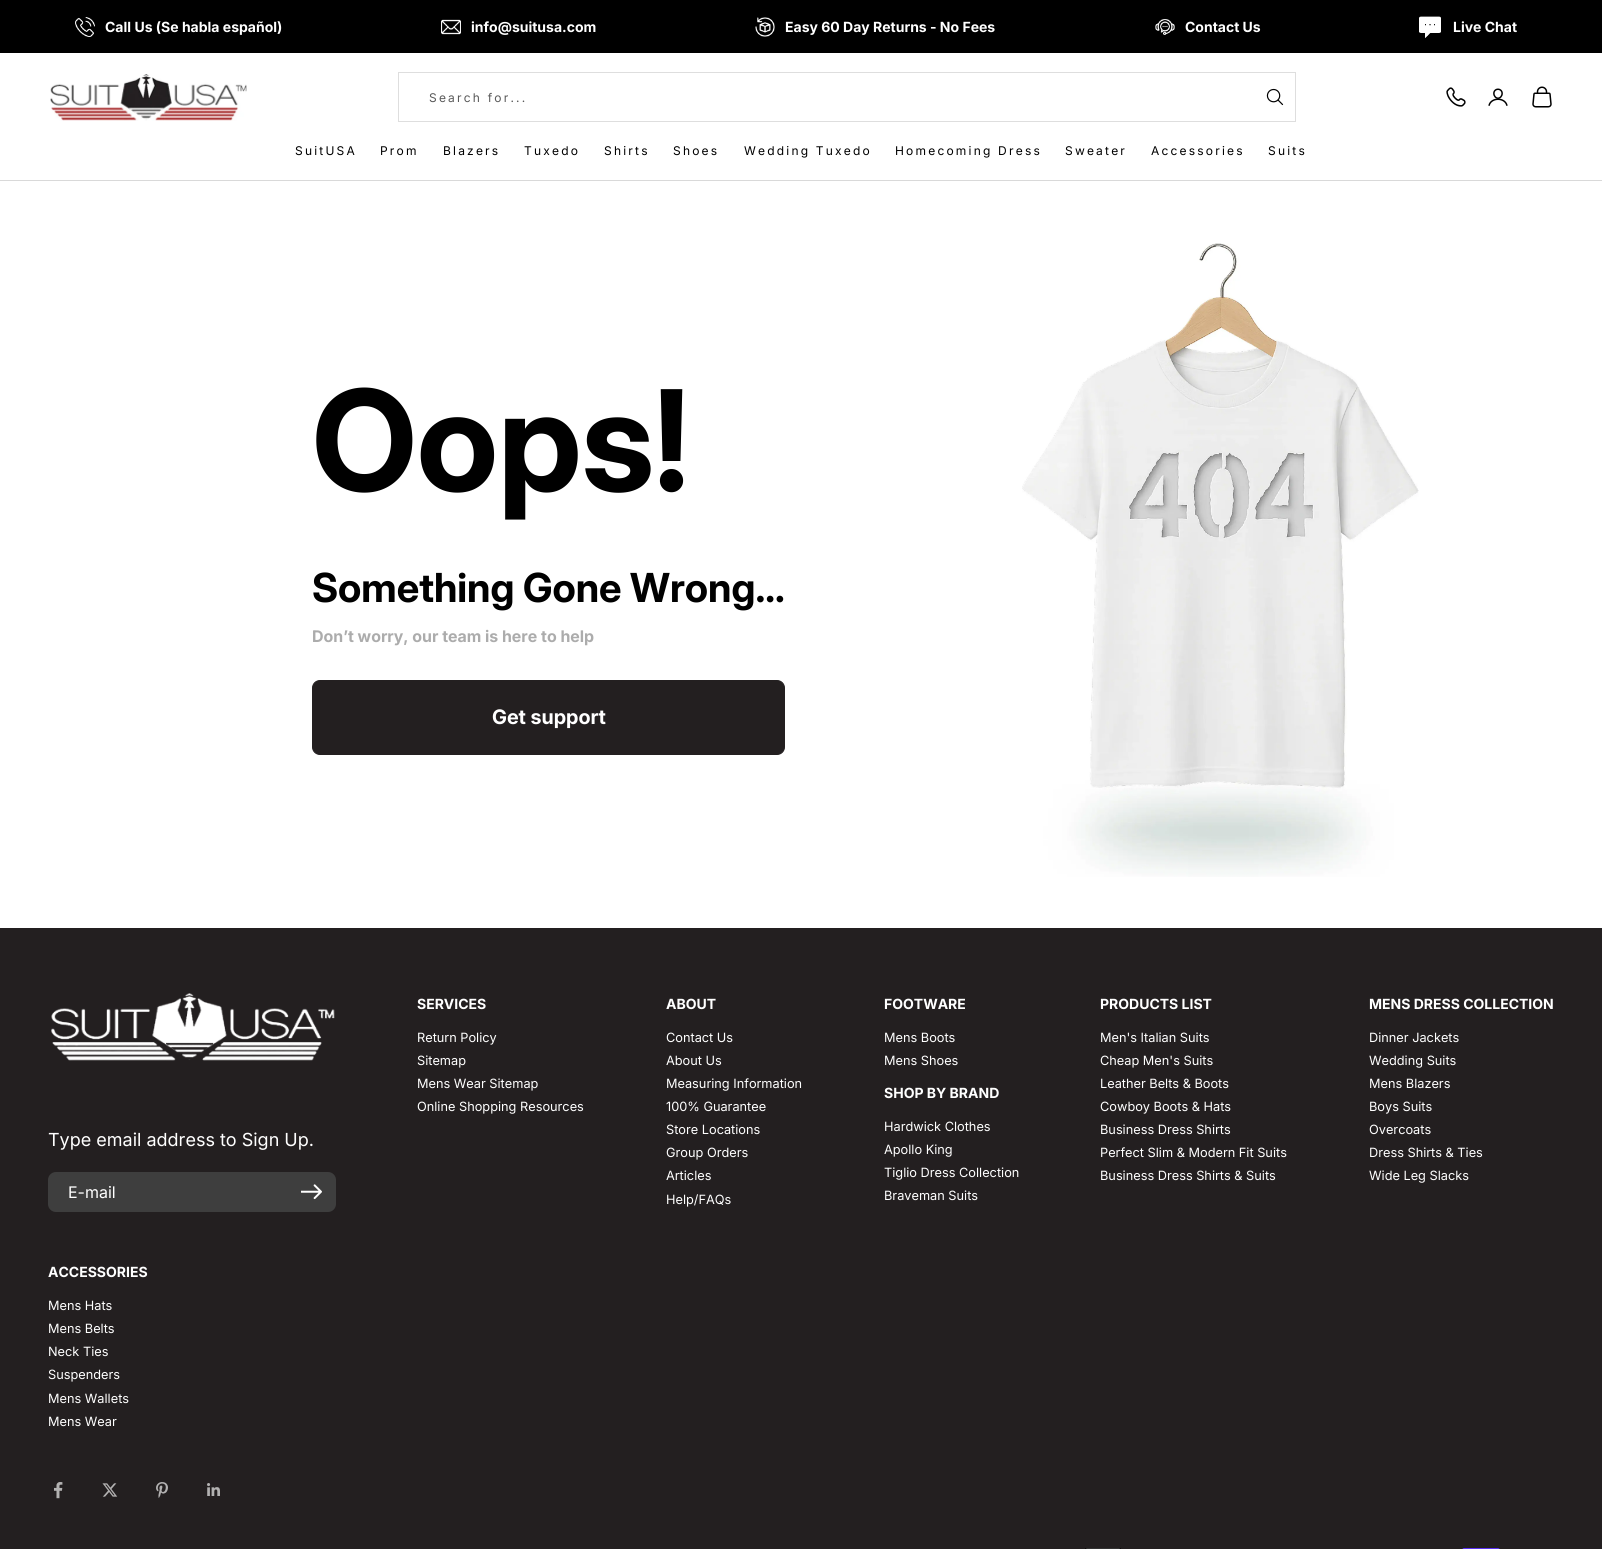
#include <cairo.h>
#include <math.h>
#include <stddef.h>


static void rgb(cairo_t *cr, int r, int g, int b)
{
	cairo_set_source_rgb(cr, r / 255.0, g / 255.0, b / 255.0);
}

static void face(cairo_t *cr, const char *family, double size, int italic, int bold)
{
	cairo_select_font_face(cr, family, italic ? CAIRO_FONT_SLANT_ITALIC : CAIRO_FONT_SLANT_NORMAL,
		bold ? CAIRO_FONT_WEIGHT_BOLD : CAIRO_FONT_WEIGHT_NORMAL);
	cairo_set_font_size(cr, size);
}

static void label(cairo_t *cr, double x, double y, const char *s)
{
	cairo_move_to(cr, x, y);
	cairo_show_text(cr, s);
}

static void tracked(cairo_t *cr, double x, double y, const char *s, double letter, double word)
{
	cairo_move_to(cr, x, y);
	while (*s) {
		char ch[5] = {0};
		int n = 0;
		do ch[n++] = *s++; while ((*s & 0xC0) == 0x80);
		cairo_show_text(cr, ch);
		cairo_rel_move_to(cr, letter + word * (*ch == ' '), 0);
	}
}

static void rect(cairo_t *cr, double x, double y, double w, double h)
{
	cairo_rectangle(cr, x, y, w, h);
	cairo_fill(cr);
}

static void rrect(cairo_t *cr, double x, double y, double w, double h, double r)
{
	cairo_new_sub_path(cr);
	cairo_arc(cr, x + w - r, y + h - r, r, 0, M_PI / 2);
	cairo_arc(cr, x + r, y + h - r, r, M_PI / 2, M_PI);
	cairo_arc(cr, x + r, y + r, r, M_PI, 1.5 * M_PI);
	cairo_arc(cr, x + w - r, y + r, r, 1.5 * M_PI, 2 * M_PI);
	cairo_close_path(cr);
}

static void image(cairo_t *cr, const char *path, double x, double y, double w, double h)
{
	cairo_surface_t *image = cairo_image_surface_create_from_png(path);
	cairo_save(cr);
	cairo_set_source_surface(cr, image, x, y);
	cairo_rectangle(cr, x, y, w, h);
	cairo_fill(cr);
	cairo_restore(cr);
	cairo_surface_destroy(image);
}

static void draw(cairo_t *cr) {
	rgb(cr, 255, 255, 255);
	cairo_paint(cr);
	rgb(cr, 0, 0, 0);
	rect(cr, 0, 0, 1602, 53);
	image(cr, "image0.png", 75, 17, 20, 20);
	face(cr, "Inter", 14, 0, 1);
	rgb(cr, 255, 255, 255);
	label(cr, 105, 32, "Call Us (Se habla español)");
	image(cr, "image1.png", 441, 19, 20, 16);
	label(cr, 471, 32, "info@suitusa.com");
	image(cr, "image2.png", 755, 17, 20, 20);
	label(cr, 785, 32, "Easy 60 Day Returns - No Fees");
	image(cr, "image3.png", 1155, 19, 20, 16);
	label(cr, 1185, 32, "Contact Us");
	image(cr, "image4.png", 1419, 16, 22, 22);
	label(cr, 1453, 32, "Live Chat");
	rgb(cr, 217, 217, 217);
	rect(cr, 0, 180, 1602, 1);
	image(cr, "image5.png", 50, 74, 197, 47);
	cairo_rectangle(cr, 398.5, 72.5, 897, 49);
	rgb(cr, 222, 222, 222);
	cairo_set_line_width(cr, 1);
	cairo_stroke(cr);
	face(cr, "Inter", 12, 0, 0);
	rgb(cr, 89, 89, 89);
	tracked(cr, 429, 102, "Search for...", 2.2, 0);
	image(cr, "image6.png", 1266, 88, 18, 18);
	image(cr, "image7.png", 1446, 87, 20, 20);
	image(cr, "image8.png", 1488, 88, 20, 18);
	image(cr, "image9.png", 1532, 86, 20, 22);
	rgb(cr, 0, 0, 0);
	tracked(cr, 295, 155, "SuitUSA", 2.2, 0);
	tracked(cr, 380, 155, "Prom", 2.2, 0);
	tracked(cr, 443, 155, "Blazers", 2.2, 0);
	tracked(cr, 524, 155, "Tuxedo", 2.2, 0);
	tracked(cr, 604, 155, "Shirts", 2.2, 0);
	tracked(cr, 673, 155, "Shoes", 2.2, 0);
	tracked(cr, 744, 155, "Wedding Tuxedo", 2.2, 0);
	tracked(cr, 895, 155, "Homecoming Dress", 2.2, 0);
	tracked(cr, 1065, 155, "Sweater", 2.2, 0);
	tracked(cr, 1151, 155, "Accessories", 2.2, 0);
	tracked(cr, 1268, 155, "Suits", 2.2, 0);
	face(cr, "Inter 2", 140, 0, 1);
	label(cr, 312, 491, "Oops!");
	face(cr, "Inter 2", 40, 0, 1);
	label(cr, 312, 602, "Something Gone Wrong...");
	face(cr, "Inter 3", 16, 0, 1);
	rgb(cr, 172, 172, 172);
	label(cr, 312, 642, "Don’t worry, our team is here to help");
	rgb(cr, 35, 31, 32);
	rrect(cr, 312.5, 680.5, 472, 74, 7.5);
	cairo_fill_preserve(cr);
	cairo_stroke(cr);
	face(cr, "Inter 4", 20, 0, 1);
	rgb(cr, 255, 255, 255);
	label(cr, 492, 724, "Get support");
	image(cr, "image10.png", 1022, 243, 397, 634);
	rgb(cr, 35, 31, 32);
	rect(cr, 0, 928, 1602, 621);
	image(cr, "image11.png", 51, 993, 284, 68);
	face(cr, "Inter", 18, 0, 0);
	rgb(cr, 255, 255, 255);
	label(cr, 48, 1146, "Type email address to Sign Up.");
	rgb(cr, 62, 62, 62);
	rrect(cr, 48, 1172, 288, 40, 8);
	cairo_fill(cr);
	face(cr, "Inter", 16, 0, 0);
	rgb(cr, 255, 255, 255);
	label(cr, 68, 1198, "E-mail");
	image(cr, "image12.png", 301, 1184, 21, 16);
	face(cr, "Inter", 14, 0, 1);
	label(cr, 417, 1009, "SERVICES");
	face(cr, "Inter", 12.75, 0, 0);
	label(cr, 417, 1042, "Return Policy");
	label(cr, 417, 1065, "Sitemap");
	label(cr, 417, 1088, "Mens Wear Sitemap");
	label(cr, 417, 1111, "Online Shopping Resources");
	face(cr, "Inter", 14, 0, 1);
	label(cr, 666, 1009, "ABOUT");
	face(cr, "Inter", 12.75, 0, 0);
	label(cr, 666, 1042, "Contact Us");
	label(cr, 666, 1065, "About Us");
	label(cr, 666, 1088, "Measuring Information");
	label(cr, 666, 1111, "100% Guarantee");
	label(cr, 666, 1134, "Store Locations");
	label(cr, 666, 1157, "Group Orders");
	label(cr, 666, 1180, "Articles");
	label(cr, 666, 1204, "Help/FAQs");
	face(cr, "Inter", 14, 0, 1);
	label(cr, 884, 1009, "FOOTWARE");
	face(cr, "Inter", 12.75, 0, 0);
	label(cr, 884, 1042, "Mens Boots");
	label(cr, 884, 1065, "Mens Shoes");
	face(cr, "Inter", 14, 0, 1);
	label(cr, 884, 1098, "SHOP BY BRAND");
	face(cr, "Inter", 12.75, 0, 0);
	label(cr, 884, 1131, "Hardwick Clothes");
	label(cr, 884, 1154, "Apollo King");
	label(cr, 884, 1177, "Tiglio Dress Collection");
	label(cr, 884, 1200, "Braveman Suits");
	face(cr, "Inter", 14, 0, 1);
	label(cr, 1100, 1009, "PRODUCTS LIST");
	face(cr, "Inter", 12.75, 0, 0);
	label(cr, 1100, 1042, "Men's Italian Suits");
	label(cr, 1100, 1065, "Cheap Men's Suits");
	label(cr, 1100, 1088, "Leather Belts & Boots");
	label(cr, 1100, 1111, "Cowboy Boots & Hats");
	label(cr, 1100, 1134, "Business Dress Shirts");
	label(cr, 1100, 1157, "Perfect Slim & Modern Fit Suits");
	label(cr, 1100, 1180, "Business Dress Shirts & Suits");
	face(cr, "Inter", 14, 0, 1);
	label(cr, 1369, 1009, "MENS DRESS COLLECTION");
	face(cr, "Inter", 12.75, 0, 0);
	label(cr, 1369, 1042, "Dinner Jackets");
	label(cr, 1369, 1065, "Wedding Suits");
	label(cr, 1369, 1088, "Mens Blazers");
	label(cr, 1369, 1111, "Boys Suits");
	label(cr, 1369, 1134, "Overcoats");
	label(cr, 1369, 1157, "Dress Shirts & Ties");
	label(cr, 1369, 1180, "Wide Leg Slacks");
	face(cr, "Inter", 14, 0, 1);
	label(cr, 48, 1277, "ACCESSORIES");
	face(cr, "Inter", 12.75, 0, 0);
	label(cr, 48, 1310, "Mens Hats");
	label(cr, 48, 1333, "Mens Belts");
	label(cr, 48, 1356, "Neck Ties");
	label(cr, 48, 1379, "Suspenders");
	label(cr, 48, 1403, "Mens Wallets");
	label(cr, 48, 1426, "Mens Wear");
	image(cr, "image13.png", 54, 1482, 9, 17);
	image(cr, "image14.png", 102, 1483, 16, 14);
	image(cr, "image15.png", 156, 1482, 12, 16);
	image(cr, "image16.png", 207, 1483, 13, 13);
	image(cr, "image17.png", 1085, 1548, 36, 1);
	image(cr, "image18.png", 1462, 1548, 38, 1);
}

int main(void) {
	cairo_surface_t *surface = cairo_image_surface_create(CAIRO_FORMAT_RGB24, 1602, 1549);
	cairo_t *cr = cairo_create(surface);
	cairo_font_options_t *options = cairo_font_options_create();
	cairo_font_options_set_hint_metrics(options, CAIRO_HINT_METRICS_OFF);
	cairo_font_options_set_hint_style(options, CAIRO_HINT_STYLE_NONE);
	cairo_set_font_options(cr, options);
	cairo_set_miter_limit(cr, 4);
	draw(cr);
	cairo_surface_write_to_png(surface, "render.png");
	cairo_font_options_destroy(options);
	cairo_destroy(cr);
	cairo_surface_destroy(surface);
	return 0;
}
